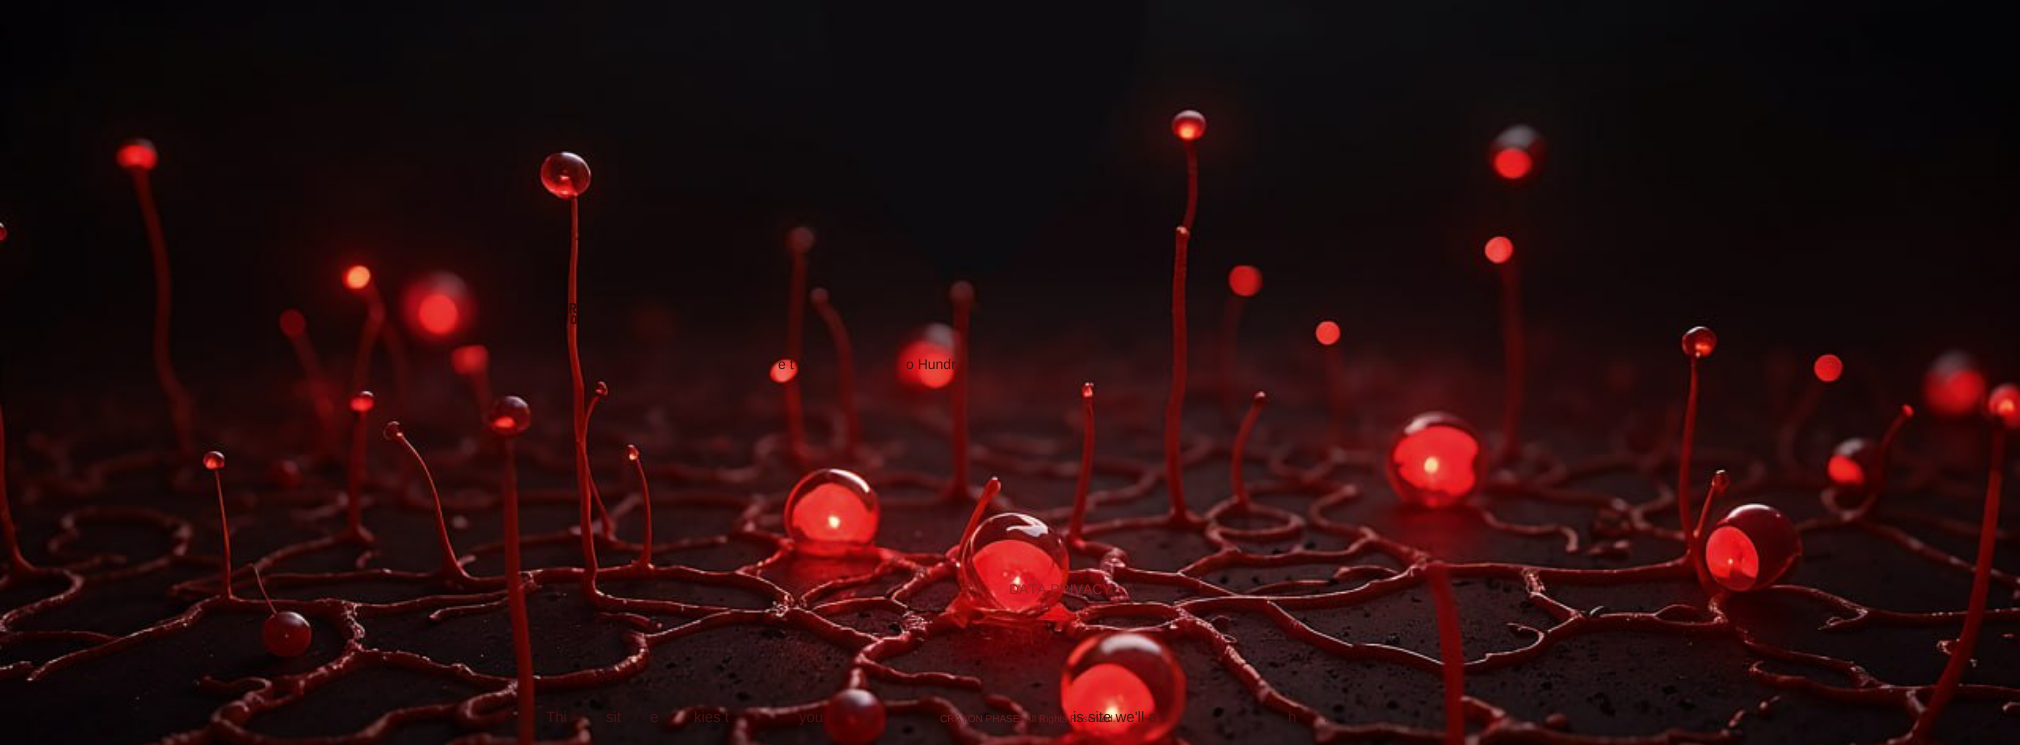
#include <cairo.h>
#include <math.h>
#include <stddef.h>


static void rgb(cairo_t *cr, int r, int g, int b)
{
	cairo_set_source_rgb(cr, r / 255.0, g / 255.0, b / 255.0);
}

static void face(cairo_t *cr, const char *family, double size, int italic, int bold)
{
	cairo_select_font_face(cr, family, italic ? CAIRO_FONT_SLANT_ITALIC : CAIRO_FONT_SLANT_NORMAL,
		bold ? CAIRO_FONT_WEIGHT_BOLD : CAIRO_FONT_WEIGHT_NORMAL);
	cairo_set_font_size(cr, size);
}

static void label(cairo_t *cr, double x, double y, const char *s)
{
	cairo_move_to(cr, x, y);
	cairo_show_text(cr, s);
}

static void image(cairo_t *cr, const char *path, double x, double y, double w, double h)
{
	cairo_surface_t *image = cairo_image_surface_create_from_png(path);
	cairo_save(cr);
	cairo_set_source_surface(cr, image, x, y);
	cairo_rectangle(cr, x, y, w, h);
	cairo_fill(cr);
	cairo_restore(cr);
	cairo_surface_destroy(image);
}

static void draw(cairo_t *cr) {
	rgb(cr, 255, 255, 255);
	cairo_paint(cr);
	image(cr, "image0.png", 0, 0, 2020, 745);
	face(cr, "Ruda Black", 14, 0, 0);
	rgb(cr, 48, 10, 8);
	label(cr, 568, 313, "R");
	face(cr, "Ruda Black", 12, 0, 0);
	label(cr, 570, 324, "0");
	face(cr, "Liberation Sans", 14, 0, 0);
	rgb(cr, 63, 17, 18);
	label(cr, 778, 369, "e t");
	label(cr, 906, 369, "o Hundr");
	rgb(cr, 155, 26, 31);
	label(cr, 1009, 594, "DATA PRIVACY");
	face(cr, "Liberation Sans", 10, 0, 0);
	rgb(cr, 110, 28, 28);
	label(cr, 940, 722, "CRAYON PHASE. All Rights Reserved.");
	face(cr, "Liberation Sans", 15, 0, 0);
	rgb(cr, 71, 18, 18);
	label(cr, 546, 722, "Thi");
	label(cr, 606, 722, "sit");
	label(cr, 650, 722, "e");
	label(cr, 694, 722, "kies t");
	label(cr, 799, 722, "you");
	label(cr, 1073, 722, "is site we'll a");
	label(cr, 1288, 722, "h");
	label(cr, 1324, 722, ".");
}

int main(void) {
	cairo_surface_t *surface = cairo_image_surface_create(CAIRO_FORMAT_RGB24, 2020, 745);
	cairo_t *cr = cairo_create(surface);
	cairo_font_options_t *options = cairo_font_options_create();
	cairo_font_options_set_hint_metrics(options, CAIRO_HINT_METRICS_OFF);
	cairo_font_options_set_hint_style(options, CAIRO_HINT_STYLE_NONE);
	cairo_set_font_options(cr, options);
	cairo_set_miter_limit(cr, 4);
	draw(cr);
	cairo_surface_write_to_png(surface, "render.png");
	cairo_font_options_destroy(options);
	cairo_destroy(cr);
	cairo_surface_destroy(surface);
	return 0;
}
